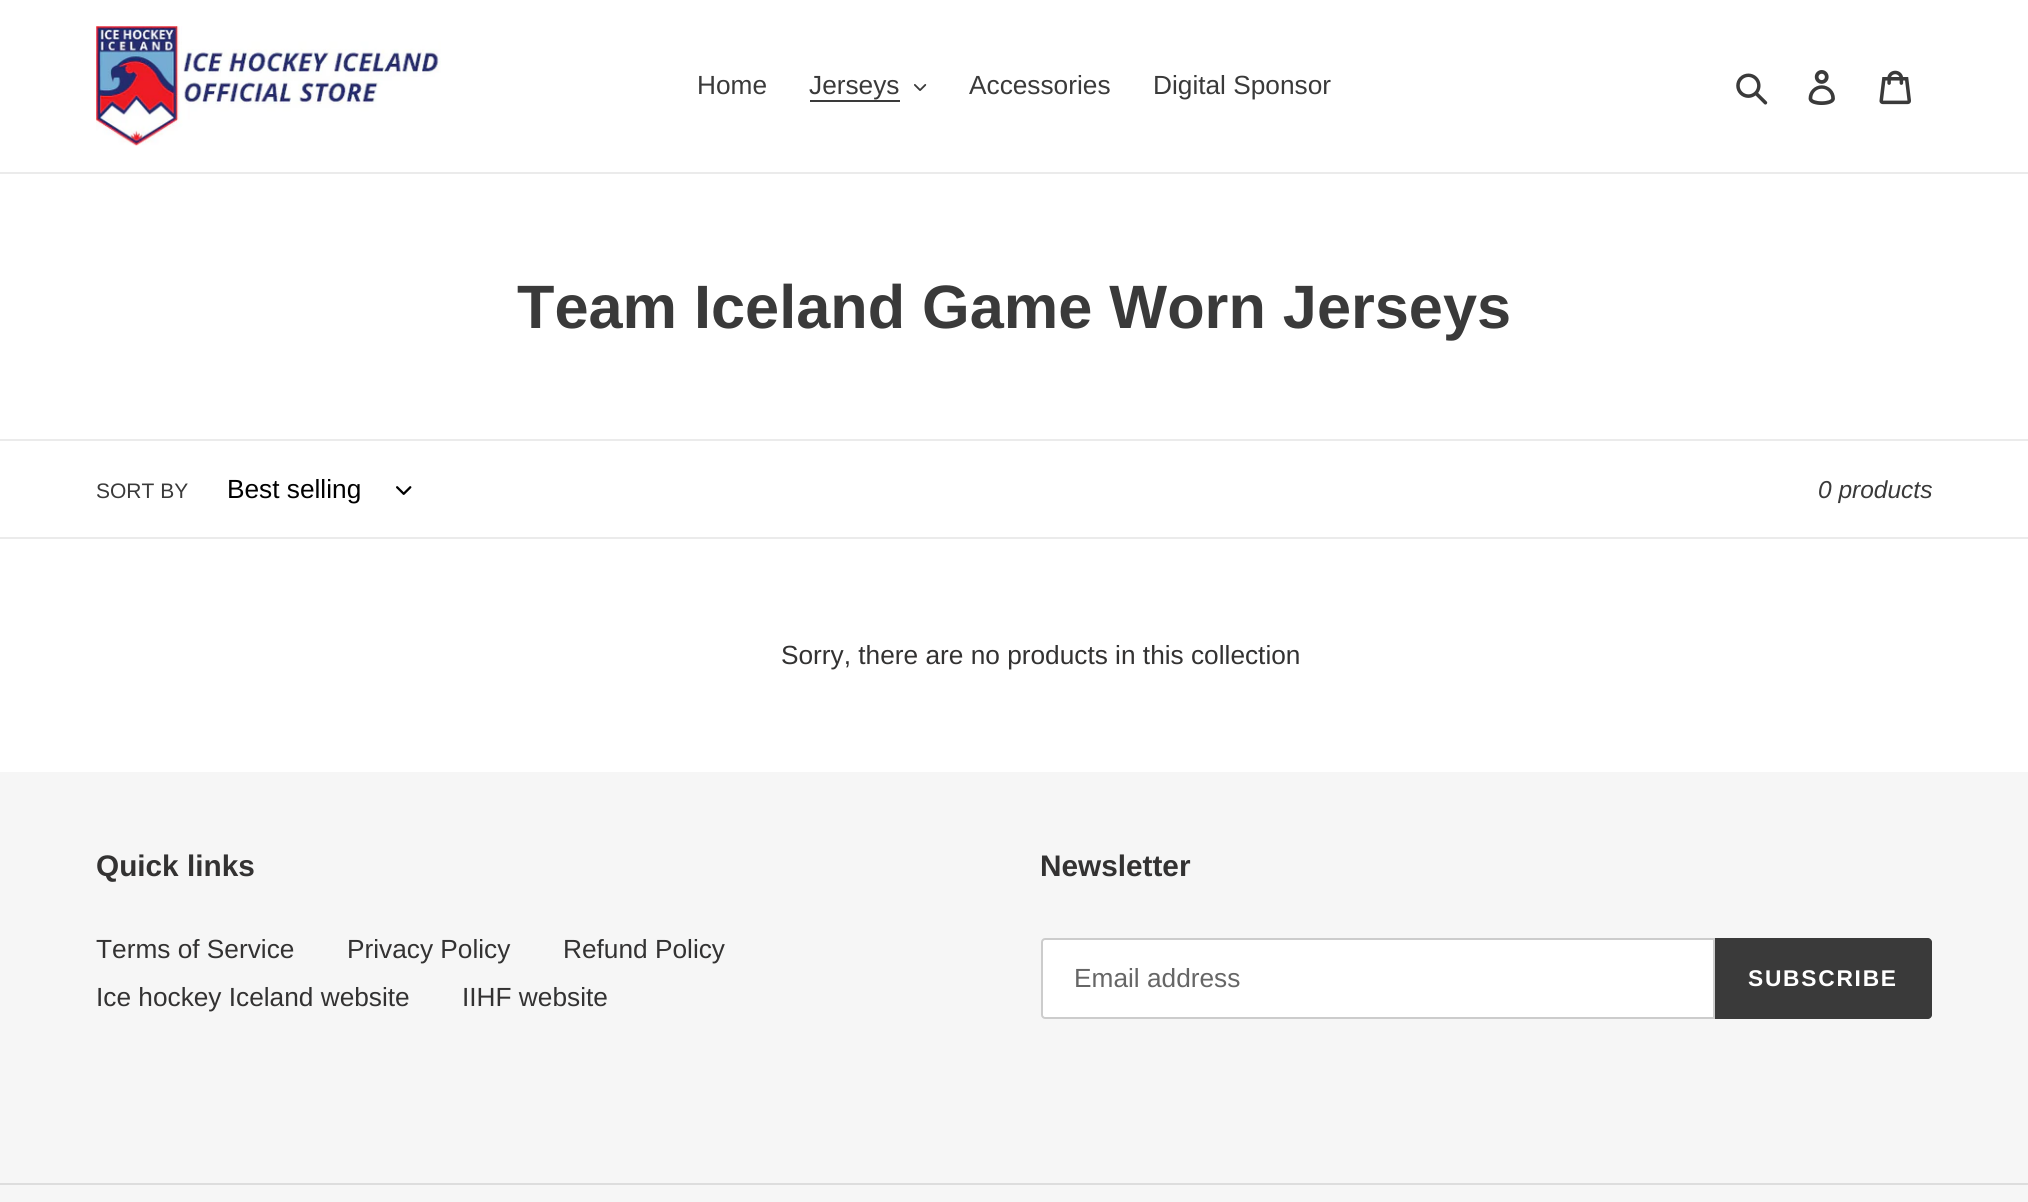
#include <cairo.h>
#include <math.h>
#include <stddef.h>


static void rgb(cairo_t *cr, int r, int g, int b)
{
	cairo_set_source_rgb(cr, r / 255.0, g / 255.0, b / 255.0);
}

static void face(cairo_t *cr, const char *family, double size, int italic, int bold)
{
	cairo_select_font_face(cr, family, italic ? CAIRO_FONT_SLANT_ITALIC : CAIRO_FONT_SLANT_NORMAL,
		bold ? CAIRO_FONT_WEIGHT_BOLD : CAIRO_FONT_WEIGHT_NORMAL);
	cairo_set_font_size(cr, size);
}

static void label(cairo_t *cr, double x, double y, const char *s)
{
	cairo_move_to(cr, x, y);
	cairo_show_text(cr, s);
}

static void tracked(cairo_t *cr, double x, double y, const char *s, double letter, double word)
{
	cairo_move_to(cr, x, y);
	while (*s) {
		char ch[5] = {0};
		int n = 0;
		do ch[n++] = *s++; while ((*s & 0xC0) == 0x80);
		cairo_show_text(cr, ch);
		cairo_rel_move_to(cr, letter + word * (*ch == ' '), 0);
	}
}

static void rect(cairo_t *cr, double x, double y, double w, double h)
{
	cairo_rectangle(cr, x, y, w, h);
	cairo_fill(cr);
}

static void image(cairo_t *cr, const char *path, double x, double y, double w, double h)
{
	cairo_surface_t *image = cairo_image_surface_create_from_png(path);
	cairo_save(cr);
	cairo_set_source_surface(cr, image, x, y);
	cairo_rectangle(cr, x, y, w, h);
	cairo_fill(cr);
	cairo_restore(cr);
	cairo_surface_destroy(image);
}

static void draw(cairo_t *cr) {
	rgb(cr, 255, 255, 255);
	cairo_paint(cr);
	rgb(cr, 235, 235, 235);
	rect(cr, 0, 172, 2028, 2);
	image(cr, "image0.png", 96, 26, 345, 120);
	face(cr, "Liberation Sans", 26.25, 0, 0);
	rgb(cr, 58, 58, 58);
	label(cr, 697, 94, "Home");
	label(cr, 809, 94, "Jerseys");
	rect(cr, 810, 100, 90, 2);
	image(cr, "image1.png", 914, 84, 13, 7);
	label(cr, 969, 94, "Accessories");
	label(cr, 1153, 94, "Digital Sponsor");
	image(cr, "image2.png", 1736, 73, 32, 32);
	image(cr, "image3.png", 1808, 70, 27, 35);
	image(cr, "image4.png", 1879, 70, 32, 35);
	face(cr, "Liberation Sans", 61.25, 0, 1);
	label(cr, 517, 328, "Team Iceland Game Worn Jerseys");
	rgb(cr, 235, 235, 235);
	rect(cr, 0, 439, 2028, 2);
	rect(cr, 0, 537, 2028, 2);
	face(cr, "Liberation Sans", 21, 0, 0);
	rgb(cr, 58, 58, 58);
	label(cr, 96, 498, "SORT BY");
	face(cr, "Liberation Sans", 26.25, 0, 0);
	rgb(cr, 0, 0, 0);
	label(cr, 227, 498, "Best selling");
	image(cr, "image5.png", 396, 486, 16, 9);
	face(cr, "Liberation Sans", 24.5, 1, 0);
	rgb(cr, 58, 58, 58);
	label(cr, 1818, 498, "0 products");
	face(cr, "Liberation Sans", 26.25, 0, 0);
	rgb(cr, 51, 50, 50);
	label(cr, 781, 664, "Sorry, there are no products in this collection");
	rgb(cr, 246, 246, 246);
	rect(cr, 0, 772, 2028, 430);
	face(cr, "Liberation Sans", 29.75, 0, 1);
	rgb(cr, 51, 50, 50);
	label(cr, 96, 876, "Quick links");
	face(cr, "Liberation Sans", 26.25, 0, 0);
	label(cr, 96, 958, "Terms of Service");
	label(cr, 347, 958, "Privacy Policy");
	label(cr, 563, 958, "Refund Policy");
	label(cr, 96, 1006, "Ice hockey Iceland website");
	label(cr, 462, 1006, "IIHF website");
	face(cr, "Liberation Sans", 29.75, 0, 1);
	label(cr, 1040, 876, "Newsletter");
	rgb(cr, 255, 255, 255);
	cairo_new_path(cr);
	cairo_move_to(cr, 1045, 939);
	cairo_line_to(cr, 1714, 939);
	cairo_line_to(cr, 1714, 1018);
	cairo_line_to(cr, 1045, 1018);
	cairo_curve_to(cr, 1043.5, 1018, 1042, 1016.5, 1042, 1015);
	cairo_line_to(cr, 1042, 942);
	cairo_curve_to(cr, 1042, 940.5, 1043.5, 939, 1045, 939);
	cairo_close_path(cr);
	cairo_fill_preserve(cr);
	rgb(cr, 204, 204, 204);
	cairo_stroke(cr);
	face(cr, "Liberation Sans", 26.25, 0, 0);
	rgb(cr, 102, 102, 102);
	label(cr, 1074, 987, "Email address");
	rgb(cr, 58, 58, 58);
	cairo_new_path(cr);
	cairo_move_to(cr, 1715, 938);
	cairo_line_to(cr, 1928, 938);
	cairo_curve_to(cr, 1930, 938, 1932, 940, 1932, 942);
	cairo_line_to(cr, 1932, 1015);
	cairo_curve_to(cr, 1932, 1017, 1930, 1019, 1928, 1019);
	cairo_line_to(cr, 1715, 1019);
	cairo_close_path(cr);
	cairo_fill(cr);
	face(cr, "Liberation Sans", 22.75, 0, 1);
	rgb(cr, 255, 255, 255);
	tracked(cr, 1748, 986, "SUBSCRIBE", 1.75, 0);
	rgb(cr, 221, 221, 221);
	rect(cr, 0, 1183, 2028, 2);
}

int main(void) {
	cairo_surface_t *surface = cairo_image_surface_create(CAIRO_FORMAT_RGB24, 2028, 1202);
	cairo_t *cr = cairo_create(surface);
	cairo_font_options_t *options = cairo_font_options_create();
	cairo_font_options_set_hint_metrics(options, CAIRO_HINT_METRICS_OFF);
	cairo_font_options_set_hint_style(options, CAIRO_HINT_STYLE_NONE);
	cairo_set_font_options(cr, options);
	cairo_set_miter_limit(cr, 4);
	draw(cr);
	cairo_surface_write_to_png(surface, "render.png");
	cairo_font_options_destroy(options);
	cairo_destroy(cr);
	cairo_surface_destroy(surface);
	return 0;
}
